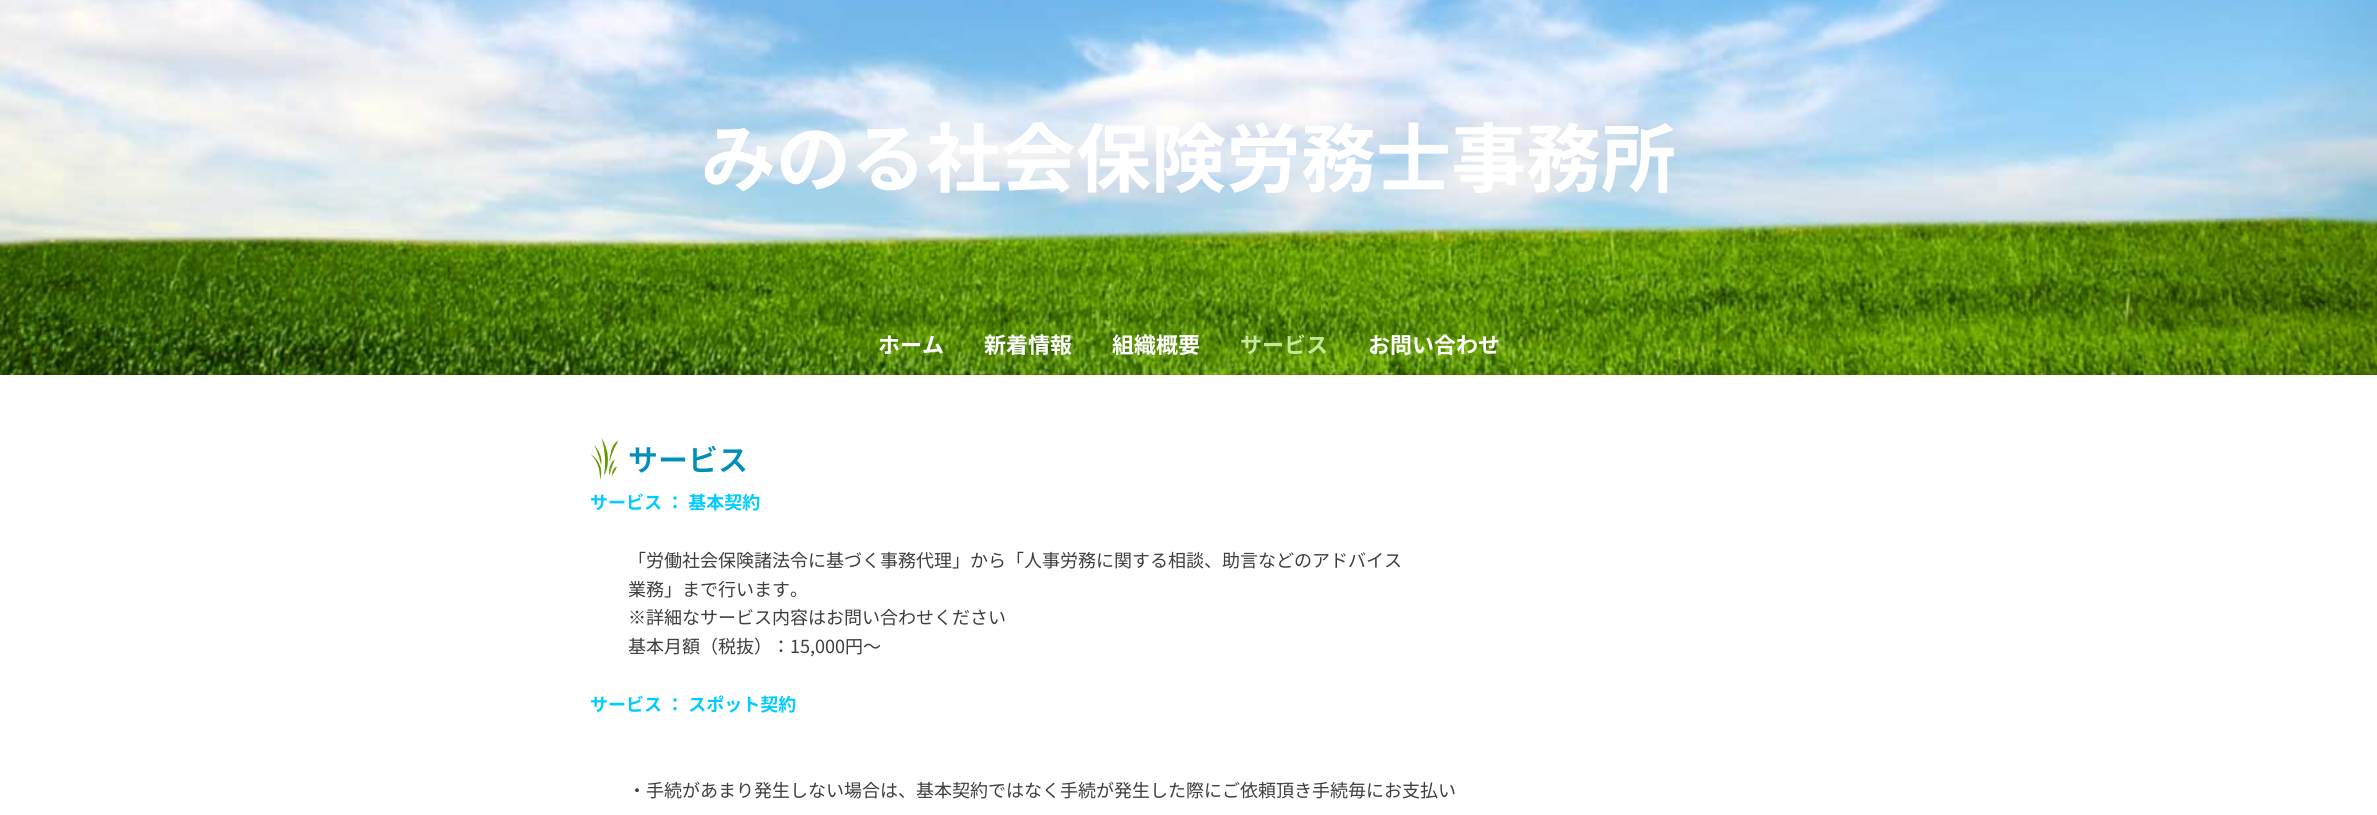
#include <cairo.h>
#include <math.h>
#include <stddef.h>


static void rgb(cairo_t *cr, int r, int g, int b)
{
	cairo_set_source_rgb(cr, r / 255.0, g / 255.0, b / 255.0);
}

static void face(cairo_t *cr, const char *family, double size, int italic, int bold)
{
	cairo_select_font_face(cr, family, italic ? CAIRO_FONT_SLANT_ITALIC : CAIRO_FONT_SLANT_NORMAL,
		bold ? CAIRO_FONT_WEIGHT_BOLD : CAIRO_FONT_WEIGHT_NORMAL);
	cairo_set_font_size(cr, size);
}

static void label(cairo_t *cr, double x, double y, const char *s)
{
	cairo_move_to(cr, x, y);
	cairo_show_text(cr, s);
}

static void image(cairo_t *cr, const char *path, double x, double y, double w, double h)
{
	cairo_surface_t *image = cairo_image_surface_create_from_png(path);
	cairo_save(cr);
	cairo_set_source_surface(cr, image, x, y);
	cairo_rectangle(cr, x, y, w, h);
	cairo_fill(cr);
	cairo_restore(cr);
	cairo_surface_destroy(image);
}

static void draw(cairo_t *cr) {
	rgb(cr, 255, 255, 255);
	cairo_paint(cr);
	image(cr, "image0.png", 0, 0, 2377, 375);
	face(cr, "Noto Sans JP", 75, 0, 1);
	rgb(cr, 255, 255, 255);
	label(cr, 701, 186, "みのる社会保険労務士事務所");
	face(cr, "Noto Sans JP", 22, 0, 1);
	label(cr, 878, 353, "ホーム");
	label(cr, 984, 353, "新着情報");
	label(cr, 1112, 353, "組織概要");
	rgb(cr, 199, 232, 155);
	label(cr, 1240, 353, "サービス");
	rgb(cr, 255, 255, 255);
	label(cr, 1368, 353, "お問い合わせ");
	image(cr, "image1.png", 590, 437, 28, 43);
	face(cr, "Noto Sans JP SemiBold", 30, 0, 0);
	rgb(cr, 0, 143, 185);
	label(cr, 628, 471, "サービス");
	face(cr, "Noto Sans JP", 18, 0, 1);
	rgb(cr, 0, 204, 255);
	label(cr, 590, 509, "サービス ： 基本契約");
	face(cr, "Noto Sans JP", 18, 0, 0);
	rgb(cr, 62, 62, 62);
	label(cr, 628, 567, "「労働社会保険諸法令に基づく事務代理」から「人事労務に関する相談、助言などのアドバイス");
	label(cr, 628, 596, "業務」まで行います。");
	label(cr, 628, 624, "※詳細なサービス内容はお問い合わせください");
	label(cr, 628, 653, "基本月額（税抜）：15,000円～");
	face(cr, "Noto Sans JP", 18, 0, 1);
	rgb(cr, 0, 204, 255);
	label(cr, 590, 711, "サービス ： スポット契約");
	face(cr, "Noto Sans JP", 18, 0, 0);
	rgb(cr, 62, 62, 62);
	label(cr, 628, 797, "・手続があまり発生しない場合は、基本契約ではなく手続が発生した際にご依頼頂き手続毎にお支払い");
}

int main(void) {
	cairo_surface_t *surface = cairo_image_surface_create(CAIRO_FORMAT_RGB24, 2377, 815);
	cairo_t *cr = cairo_create(surface);
	cairo_font_options_t *options = cairo_font_options_create();
	cairo_font_options_set_hint_metrics(options, CAIRO_HINT_METRICS_OFF);
	cairo_font_options_set_hint_style(options, CAIRO_HINT_STYLE_NONE);
	cairo_set_font_options(cr, options);
	cairo_set_miter_limit(cr, 4);
	draw(cr);
	cairo_surface_write_to_png(surface, "render.png");
	cairo_font_options_destroy(options);
	cairo_destroy(cr);
	cairo_surface_destroy(surface);
	return 0;
}
